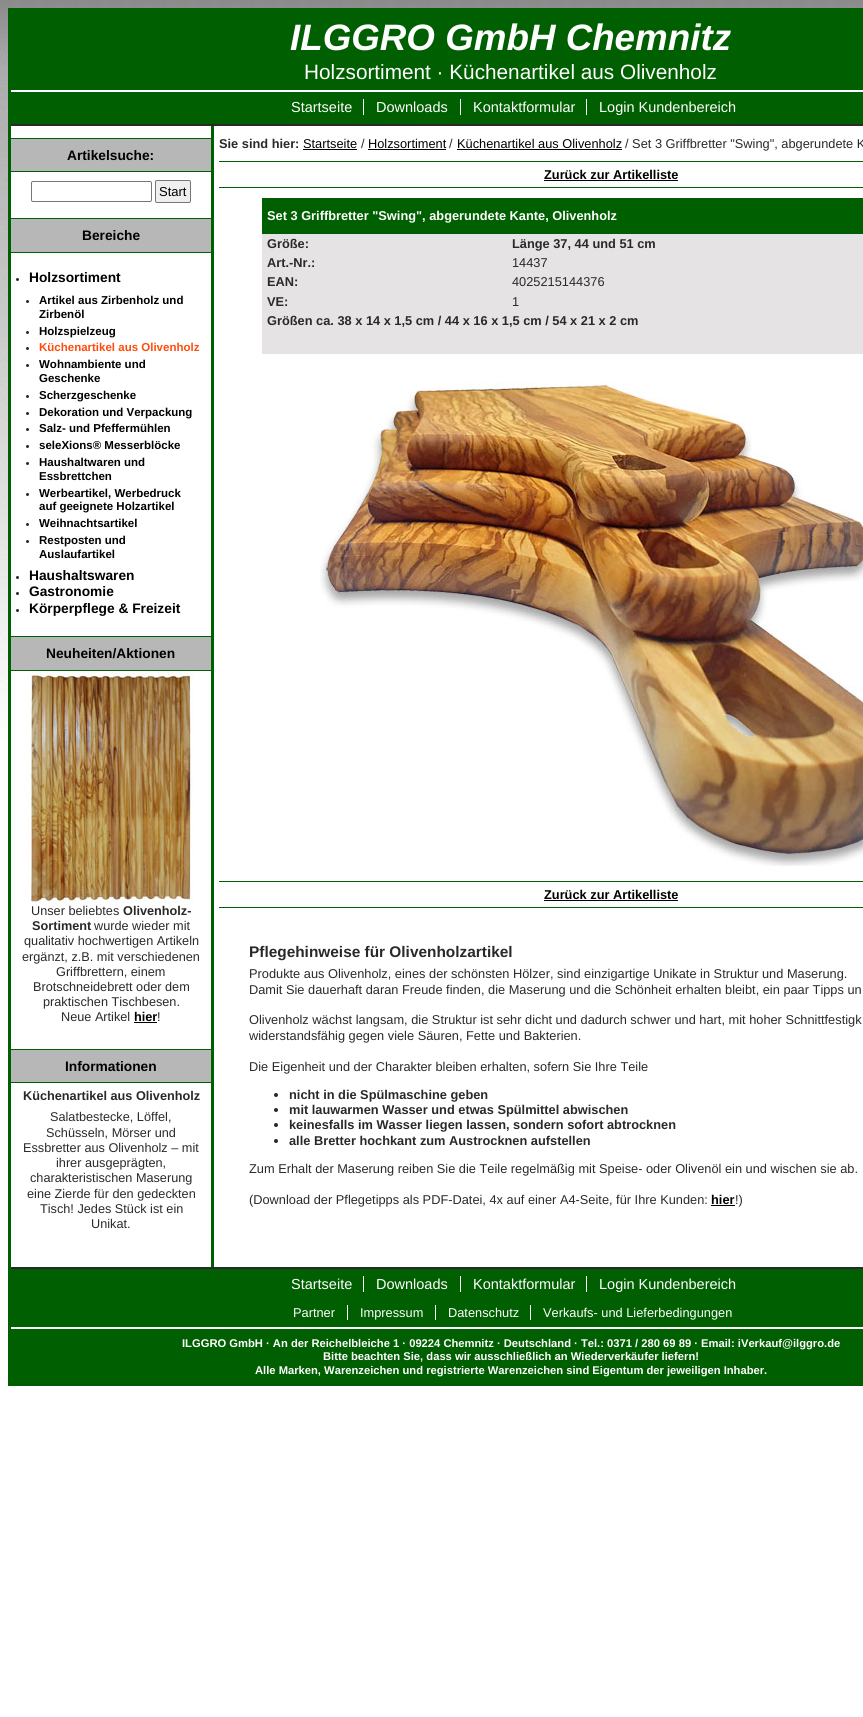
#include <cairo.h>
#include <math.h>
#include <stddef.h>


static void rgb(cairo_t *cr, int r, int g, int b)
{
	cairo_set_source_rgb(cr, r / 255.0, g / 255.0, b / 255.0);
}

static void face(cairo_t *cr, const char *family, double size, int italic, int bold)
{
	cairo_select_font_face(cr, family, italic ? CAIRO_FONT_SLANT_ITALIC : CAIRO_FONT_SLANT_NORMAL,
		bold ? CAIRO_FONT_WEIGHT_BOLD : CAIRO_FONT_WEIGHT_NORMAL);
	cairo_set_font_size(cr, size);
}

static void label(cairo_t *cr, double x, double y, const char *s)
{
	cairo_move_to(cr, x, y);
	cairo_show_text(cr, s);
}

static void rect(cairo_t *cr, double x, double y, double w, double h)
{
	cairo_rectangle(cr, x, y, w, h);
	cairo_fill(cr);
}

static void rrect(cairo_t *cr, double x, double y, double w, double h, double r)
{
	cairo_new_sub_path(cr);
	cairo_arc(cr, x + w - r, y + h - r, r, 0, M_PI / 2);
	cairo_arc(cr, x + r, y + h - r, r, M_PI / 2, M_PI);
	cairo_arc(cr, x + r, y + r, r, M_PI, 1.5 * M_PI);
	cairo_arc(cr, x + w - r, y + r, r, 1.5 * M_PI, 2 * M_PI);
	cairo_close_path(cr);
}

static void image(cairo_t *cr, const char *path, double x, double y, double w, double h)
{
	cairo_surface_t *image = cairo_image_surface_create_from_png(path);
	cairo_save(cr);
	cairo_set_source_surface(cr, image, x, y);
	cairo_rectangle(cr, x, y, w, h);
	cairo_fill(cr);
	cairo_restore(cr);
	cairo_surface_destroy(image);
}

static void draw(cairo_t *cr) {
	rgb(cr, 255, 255, 255);
	cairo_paint(cr);
	image(cr, "image0.png", 0, 0, 863, 739);
	rgb(cr, 255, 255, 255);
	rect(cr, 11, 126, 852, 613);
	cairo_rectangle(cr, 9.5, 9.5, 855, 1375);
	rgb(cr, 0, 95, 0);
	cairo_set_line_width(cr, 3);
	cairo_stroke(cr);
	rect(cr, 11, 11, 852, 79);
	rgb(cr, 255, 255, 255);
	rect(cr, 11, 90, 852, 2);
	face(cr, "Liberation Sans", 36.75, 1, 1);
	label(cr, 290, 50, "ILGGRO GmbH Chemnitz");
	face(cr, "Liberation Sans", 20.75, 0, 0);
	label(cr, 304, 79, "Holzsortiment · Küchenartikel aus Olivenholz");
	rgb(cr, 0, 95, 0);
	rect(cr, 11, 92, 852, 32);
	rgb(cr, 41, 41, 41);
	rect(cr, 11, 124, 852, 2);
	face(cr, "Liberation Sans", 14.5, 0, 0);
	rgb(cr, 255, 255, 255);
	label(cr, 291, 112, "Startseite");
	rect(cr, 363, 99, 1, 16);
	label(cr, 376, 112, "Downloads");
	rect(cr, 460, 99, 1, 16);
	label(cr, 473, 112, "Kontaktformular");
	rect(cr, 586, 99, 1, 16);
	label(cr, 599, 112, "Login Kundenbereich");
	rgb(cr, 183, 183, 183);
	rect(cr, 11, 139, 200, 32);
	rgb(cr, 0, 95, 0);
	rect(cr, 11, 138, 200, 1);
	rect(cr, 11, 171, 200, 1);
	face(cr, "Liberation Sans", 13.75, 0, 1);
	rgb(cr, 0, 0, 0);
	label(cr, 67, 160, "Artikelsuche:");
	rrect(cr, 31.5, 181.5, 120, 20, 1.5);
	rgb(cr, 118, 118, 118);
	cairo_set_line_width(cr, 1);
	cairo_stroke(cr);
	rgb(cr, 239, 239, 239);
	rrect(cr, 155.5, 180.5, 35, 22, 1.5);
	cairo_fill_preserve(cr);
	rgb(cr, 118, 118, 118);
	cairo_stroke(cr);
	face(cr, "Liberation Sans", 13, 0, 0);
	rgb(cr, 0, 0, 0);
	label(cr, 159, 196, "Start");
	rgb(cr, 183, 183, 183);
	rect(cr, 11, 219, 200, 33);
	rgb(cr, 0, 95, 0);
	rect(cr, 11, 218, 200, 1);
	rect(cr, 11, 252, 200, 1);
	face(cr, "Liberation Sans", 13.75, 0, 1);
	rgb(cr, 0, 0, 0);
	label(cr, 82, 240, "Bereiche");
	rgb(cr, 41, 41, 41);
	cairo_new_path(cr);
	cairo_arc(cr, 17.5, 279.5, 1.5, 0, 2 * M_PI);
	cairo_fill(cr);
	rgb(cr, 0, 0, 0);
	label(cr, 29, 282, "Holzsortiment");
	rgb(cr, 41, 41, 41);
	cairo_new_path(cr);
	cairo_arc(cr, 27.5, 301.5, 1.5, 0, 2 * M_PI);
	cairo_fill(cr);
	face(cr, "Liberation Sans", 11.5, 0, 1);
	rgb(cr, 0, 0, 0);
	label(cr, 39, 304, "Artikel aus Zirbenholz und");
	label(cr, 39, 318, "Zirbenöl");
	rgb(cr, 41, 41, 41);
	cairo_new_path(cr);
	cairo_arc(cr, 27.5, 332.5, 1.5, 0, 2 * M_PI);
	cairo_fill(cr);
	rgb(cr, 0, 0, 0);
	label(cr, 39, 335, "Holzspielzeug");
	rgb(cr, 41, 41, 41);
	cairo_new_path(cr);
	cairo_arc(cr, 27.5, 348.5, 1.5, 0, 2 * M_PI);
	cairo_fill(cr);
	rgb(cr, 255, 76, 13);
	label(cr, 39, 351, "Küchenartikel aus Olivenholz");
	rgb(cr, 41, 41, 41);
	cairo_new_path(cr);
	cairo_arc(cr, 27.5, 365.5, 1.5, 0, 2 * M_PI);
	cairo_fill(cr);
	rgb(cr, 0, 0, 0);
	label(cr, 39, 368, "Wohnambiente und");
	label(cr, 39, 382, "Geschenke");
	rgb(cr, 41, 41, 41);
	cairo_new_path(cr);
	cairo_arc(cr, 27.5, 396.5, 1.5, 0, 2 * M_PI);
	cairo_fill(cr);
	rgb(cr, 0, 0, 0);
	label(cr, 39, 399, "Scherzgeschenke");
	rgb(cr, 41, 41, 41);
	cairo_new_path(cr);
	cairo_arc(cr, 27.5, 413.5, 1.5, 0, 2 * M_PI);
	cairo_fill(cr);
	rgb(cr, 0, 0, 0);
	label(cr, 39, 416, "Dekoration und Verpackung");
	rgb(cr, 41, 41, 41);
	cairo_new_path(cr);
	cairo_arc(cr, 27.5, 429.5, 1.5, 0, 2 * M_PI);
	cairo_fill(cr);
	rgb(cr, 0, 0, 0);
	label(cr, 39, 432, "Salz- und Pfeffermühlen");
	rgb(cr, 41, 41, 41);
	cairo_new_path(cr);
	cairo_arc(cr, 27.5, 446.5, 1.5, 0, 2 * M_PI);
	cairo_fill(cr);
	rgb(cr, 0, 0, 0);
	label(cr, 39, 449, "seleXions® Messerblöcke");
	rgb(cr, 41, 41, 41);
	cairo_new_path(cr);
	cairo_arc(cr, 27.5, 463.5, 1.5, 0, 2 * M_PI);
	cairo_fill(cr);
	rgb(cr, 0, 0, 0);
	label(cr, 39, 466, "Haushaltwaren und");
	label(cr, 39, 480, "Essbrettchen");
	rgb(cr, 41, 41, 41);
	cairo_new_path(cr);
	cairo_arc(cr, 27.5, 494.5, 1.5, 0, 2 * M_PI);
	cairo_fill(cr);
	rgb(cr, 0, 0, 0);
	label(cr, 39, 497, "Werbeartikel, Werbedruck");
	label(cr, 39, 510, "auf geeignete Holzartikel");
	rgb(cr, 41, 41, 41);
	cairo_new_path(cr);
	cairo_arc(cr, 27.5, 524.5, 1.5, 0, 2 * M_PI);
	cairo_fill(cr);
	rgb(cr, 0, 0, 0);
	label(cr, 39, 527, "Weihnachtsartikel");
	rgb(cr, 41, 41, 41);
	cairo_new_path(cr);
	cairo_arc(cr, 27.5, 541.5, 1.5, 0, 2 * M_PI);
	cairo_fill(cr);
	rgb(cr, 0, 0, 0);
	label(cr, 39, 544, "Restposten und");
	label(cr, 39, 558, "Auslaufartikel");
	rgb(cr, 41, 41, 41);
	cairo_new_path(cr);
	cairo_arc(cr, 17.5, 577.5, 1.5, 0, 2 * M_PI);
	cairo_fill(cr);
	face(cr, "Liberation Sans", 13.75, 0, 1);
	rgb(cr, 0, 0, 0);
	label(cr, 29, 580, "Haushaltswaren");
	rgb(cr, 41, 41, 41);
	cairo_new_path(cr);
	cairo_arc(cr, 17.5, 593.5, 1.5, 0, 2 * M_PI);
	cairo_fill(cr);
	rgb(cr, 0, 0, 0);
	label(cr, 29, 596, "Gastronomie");
	rgb(cr, 41, 41, 41);
	cairo_new_path(cr);
	cairo_arc(cr, 17.5, 610.5, 1.5, 0, 2 * M_PI);
	cairo_fill(cr);
	rgb(cr, 0, 0, 0);
	label(cr, 29, 613, "Körperpflege & Freizeit");
	rgb(cr, 183, 183, 183);
	rect(cr, 11, 637, 200, 33);
	rgb(cr, 0, 95, 0);
	rect(cr, 11, 636, 200, 1);
	rect(cr, 11, 670, 200, 1);
	rgb(cr, 0, 0, 0);
	label(cr, 46, 658, "Neuheiten/Aktionen");
	image(cr, "image1.png", 28, 671, 166, 232);
	face(cr, "Liberation Sans", 12.7, 0, 0);
	rgb(cr, 41, 41, 41);
	label(cr, 31, 915, "Unser beliebtes");
	face(cr, "Liberation Sans", 12.7, 0, 1);
	label(cr, 123, 915, "Olivenholz-");
	label(cr, 32, 930, "Sortiment");
	face(cr, "Liberation Sans", 12.7, 0, 0);
	label(cr, 94, 930, "wurde wieder mit");
	label(cr, 24, 945, "qualitativ hochwertigen Artikeln");
	label(cr, 22, 961, "ergänzt, z.B. mit verschiedenen");
	label(cr, 56, 976, "Griffbrettern, einem");
	label(cr, 33, 991, "Brotschneidebrett oder dem");
	label(cr, 43, 1006, "praktischen Tischbesen.");
	label(cr, 61, 1021, "Neue Artikel");
	face(cr, "Liberation Sans", 12.7, 0, 1);
	rgb(cr, 0, 0, 0);
	label(cr, 134, 1021, "hier");
	rect(cr, 134, 1022, 23, 1);
	face(cr, "Liberation Sans", 12.7, 0, 0);
	rgb(cr, 41, 41, 41);
	label(cr, 157, 1021, "!");
	rgb(cr, 183, 183, 183);
	rect(cr, 11, 1050, 200, 32);
	rgb(cr, 0, 95, 0);
	rect(cr, 11, 1049, 200, 1);
	rect(cr, 11, 1082, 200, 1);
	face(cr, "Liberation Sans", 13.75, 0, 1);
	rgb(cr, 0, 0, 0);
	label(cr, 65, 1071, "Informationen");
	face(cr, "Liberation Sans", 12.7, 0, 1);
	rgb(cr, 41, 41, 41);
	label(cr, 23, 1100, "Küchenartikel aus Olivenholz");
	face(cr, "Liberation Sans", 12.7, 0, 0);
	label(cr, 50, 1121, "Salatbestecke, Löffel,");
	label(cr, 46, 1137, "Schüsseln, Mörser und");
	label(cr, 23, 1152, "Essbretter aus Olivenholz – mit");
	label(cr, 56, 1167, "ihrer ausgeprägten,");
	label(cr, 30, 1182, "charakteristischen Maserung");
	label(cr, 27, 1198, "eine Zierde für den gedeckten");
	label(cr, 40, 1213, "Tisch! Jedes Stück ist ein");
	label(cr, 91, 1228, "Unikat.");
	rgb(cr, 0, 95, 0);
	rect(cr, 211, 126, 3, 1141);
	face(cr, "Liberation Sans", 12.8, 0, 1);
	rgb(cr, 41, 41, 41);
	label(cr, 219, 148, "Sie sind hier:");
	face(cr, "Liberation Sans", 12.8, 0, 0);
	rgb(cr, 0, 0, 0);
	label(cr, 303, 148, "Startseite");
	rect(cr, 303, 149, 54, 1);
	rgb(cr, 41, 41, 41);
	label(cr, 361, 148, "/");
	rgb(cr, 0, 0, 0);
	label(cr, 368, 148, "Holzsortiment");
	rect(cr, 368, 149, 78, 1);
	rgb(cr, 41, 41, 41);
	label(cr, 449, 148, "/");
	rgb(cr, 0, 0, 0);
	label(cr, 457, 148, "Küchenartikel aus Olivenholz");
	rect(cr, 457, 149, 165, 1);
	rgb(cr, 41, 41, 41);
	label(cr, 625, 148, "/ Set 3 Griffbretter \"Swing\", abgerundete K");
	rgb(cr, 0, 95, 0);
	rect(cr, 219, 161, 644, 1);
	rect(cr, 219, 187, 644, 1);
	face(cr, "Liberation Sans", 12.8, 0, 1);
	rgb(cr, 0, 0, 0);
	label(cr, 544, 179, "Zurück zur Artikelliste");
	rect(cr, 544, 180, 134, 1);
	rgb(cr, 0, 95, 0);
	rect(cr, 262, 198, 601, 36);
	rgb(cr, 255, 255, 255);
	label(cr, 267, 220, "Set 3 Griffbretter \"Swing\", abgerundete Kante, Olivenholz");
	rgb(cr, 229, 227, 227);
	rect(cr, 262, 234, 601, 19);
	rgb(cr, 41, 41, 41);
	label(cr, 267, 248, "Größe:");
	label(cr, 512, 248, "Länge 37, 44 und 51 cm");
	rgb(cr, 229, 227, 227);
	rect(cr, 262, 253, 601, 19);
	rgb(cr, 41, 41, 41);
	label(cr, 267, 267, "Art.-Nr.:");
	face(cr, "Liberation Sans", 12.8, 0, 0);
	label(cr, 512, 267, "14437");
	rgb(cr, 229, 227, 227);
	rect(cr, 262, 272, 601, 20);
	face(cr, "Liberation Sans", 12.8, 0, 1);
	rgb(cr, 41, 41, 41);
	label(cr, 267, 286, "EAN:");
	face(cr, "Liberation Sans", 12.8, 0, 0);
	label(cr, 512, 286, "4025215144376");
	rgb(cr, 229, 227, 227);
	rect(cr, 262, 292, 601, 62);
	face(cr, "Liberation Sans", 12.8, 0, 1);
	rgb(cr, 41, 41, 41);
	label(cr, 267, 306, "VE:");
	face(cr, "Liberation Sans", 12.8, 0, 0);
	label(cr, 512, 306, "1");
	face(cr, "Liberation Sans", 12.8, 0, 1);
	label(cr, 267, 325, "Größen ca. 38 x 14 x 1,5 cm / 44 x 16 x 1,5 cm / 54 x 21 x 2 cm");
	image(cr, "image2.png", 320, 382, 543, 484);
	rgb(cr, 0, 95, 0);
	rect(cr, 219, 881, 644, 1);
	rect(cr, 219, 907, 644, 1);
	rgb(cr, 0, 0, 0);
	label(cr, 544, 899, "Zurück zur Artikelliste");
	rect(cr, 544, 900, 134, 1);
	face(cr, "Liberation Sans", 15.4, 0, 1);
	rgb(cr, 41, 41, 41);
	label(cr, 249, 957, "Pflegehinweise für Olivenholzartikel");
	face(cr, "Liberation Sans", 12.8, 0, 0);
	label(cr, 249, 978, "Produkte aus Olivenholz, eines der schönsten Hölzer, sind einzigartige Unikate in Struktur und Maserung.");
	label(cr, 249, 994, "Damit Sie dauerhaft daran Freude finden, die Maserung und die Schönheit erhalten bleibt, ein paar Tipps un");
	label(cr, 249, 1024, "Olivenholz wächst langsam, die Struktur ist sehr dicht und dadurch schwer und hart, mit hoher Schnittfestigk");
	label(cr, 249, 1040, "widerstandsfähig gegen viele Säuren, Fette und Bakterien.");
	label(cr, 249, 1071, "Die Eigenheit und der Charakter bleiben erhalten, sofern Sie Ihre Teile");
	cairo_new_path(cr);
	cairo_arc(cr, 276, 1095, 2, 0, 2 * M_PI);
	cairo_fill(cr);
	face(cr, "Liberation Sans", 12.8, 0, 1);
	label(cr, 289, 1099, "nicht in die Spülmaschine geben");
	cairo_new_path(cr);
	cairo_arc(cr, 276, 1110, 2, 0, 2 * M_PI);
	cairo_fill(cr);
	label(cr, 289, 1114, "mit lauwarmen Wasser und etwas Spülmittel abwischen");
	cairo_new_path(cr);
	cairo_arc(cr, 276, 1125, 2, 0, 2 * M_PI);
	cairo_fill(cr);
	label(cr, 289, 1129, "keinesfalls im Wasser liegen lassen, sondern sofort abtrocknen");
	cairo_new_path(cr);
	cairo_arc(cr, 276, 1141, 2, 0, 2 * M_PI);
	cairo_fill(cr);
	label(cr, 289, 1145, "alle Bretter hochkant zum Austrocknen aufstellen");
	face(cr, "Liberation Sans", 12.8, 0, 0);
	label(cr, 249, 1173, "Zum Erhalt der Maserung reiben Sie die Teile regelmäßig mit Speise- oder Olivenöl ein und wischen sie ab.");
	label(cr, 249, 1204, "(Download der Pflegetipps als PDF-Datei, 4x auf einer A4-Seite, für Ihre Kunden:");
	face(cr, "Liberation Sans", 12.8, 0, 1);
	rgb(cr, 0, 0, 0);
	label(cr, 711, 1204, "hier");
	rect(cr, 711, 1205, 24, 1);
	face(cr, "Liberation Sans", 12.8, 0, 0);
	rgb(cr, 41, 41, 41);
	label(cr, 735, 1204, "!)");
	rgb(cr, 0, 95, 0);
	rect(cr, 11, 1269, 852, 58);
	rgb(cr, 41, 41, 41);
	rect(cr, 11, 1267, 852, 2);
	face(cr, "Liberation Sans", 14.5, 0, 0);
	rgb(cr, 255, 255, 255);
	label(cr, 291, 1289, "Startseite");
	rect(cr, 363, 1276, 1, 16);
	label(cr, 376, 1289, "Downloads");
	rect(cr, 460, 1276, 1, 16);
	label(cr, 473, 1289, "Kontaktformular");
	rect(cr, 586, 1276, 1, 16);
	label(cr, 599, 1289, "Login Kundenbereich");
	face(cr, "Liberation Sans", 12.8, 0, 0);
	label(cr, 293, 1317, "Partner");
	rect(cr, 347, 1305, 1, 15);
	label(cr, 360, 1317, "Impressum");
	label(cr, 448, 1317, "Datenschutz");
	rect(cr, 435, 1305, 1, 15);
	rect(cr, 530, 1305, 1, 15);
	label(cr, 543, 1317, "Verkaufs- und Lieferbedingungen");
	rgb(cr, 0, 95, 0);
	rect(cr, 11, 1329, 852, 54);
	face(cr, "Liberation Sans", 11.2, 0, 1);
	rgb(cr, 255, 255, 255);
	label(cr, 182, 1347, "ILGGRO GmbH · An der Reichelbleiche 1 · 09224 Chemnitz · Deutschland · Tel.: 0371 / 280 69 89 · Email: iVerkauf@ilggro.de");
	label(cr, 323, 1360, "Bitte beachten Sie, dass wir ausschließlich an Wiederverkäufer liefern!");
	label(cr, 255, 1374, "Alle Marken, Warenzeichen und registrierte Warenzeichen sind Eigentum der jeweiligen Inhaber.");
}

int main(void) {
	cairo_surface_t *surface = cairo_image_surface_create(CAIRO_FORMAT_RGB24, 863, 1717);
	cairo_t *cr = cairo_create(surface);
	cairo_font_options_t *options = cairo_font_options_create();
	cairo_font_options_set_hint_metrics(options, CAIRO_HINT_METRICS_OFF);
	cairo_font_options_set_hint_style(options, CAIRO_HINT_STYLE_NONE);
	cairo_set_font_options(cr, options);
	cairo_set_miter_limit(cr, 4);
	draw(cr);
	cairo_surface_write_to_png(surface, "render.png");
	cairo_font_options_destroy(options);
	cairo_destroy(cr);
	cairo_surface_destroy(surface);
	return 0;
}
